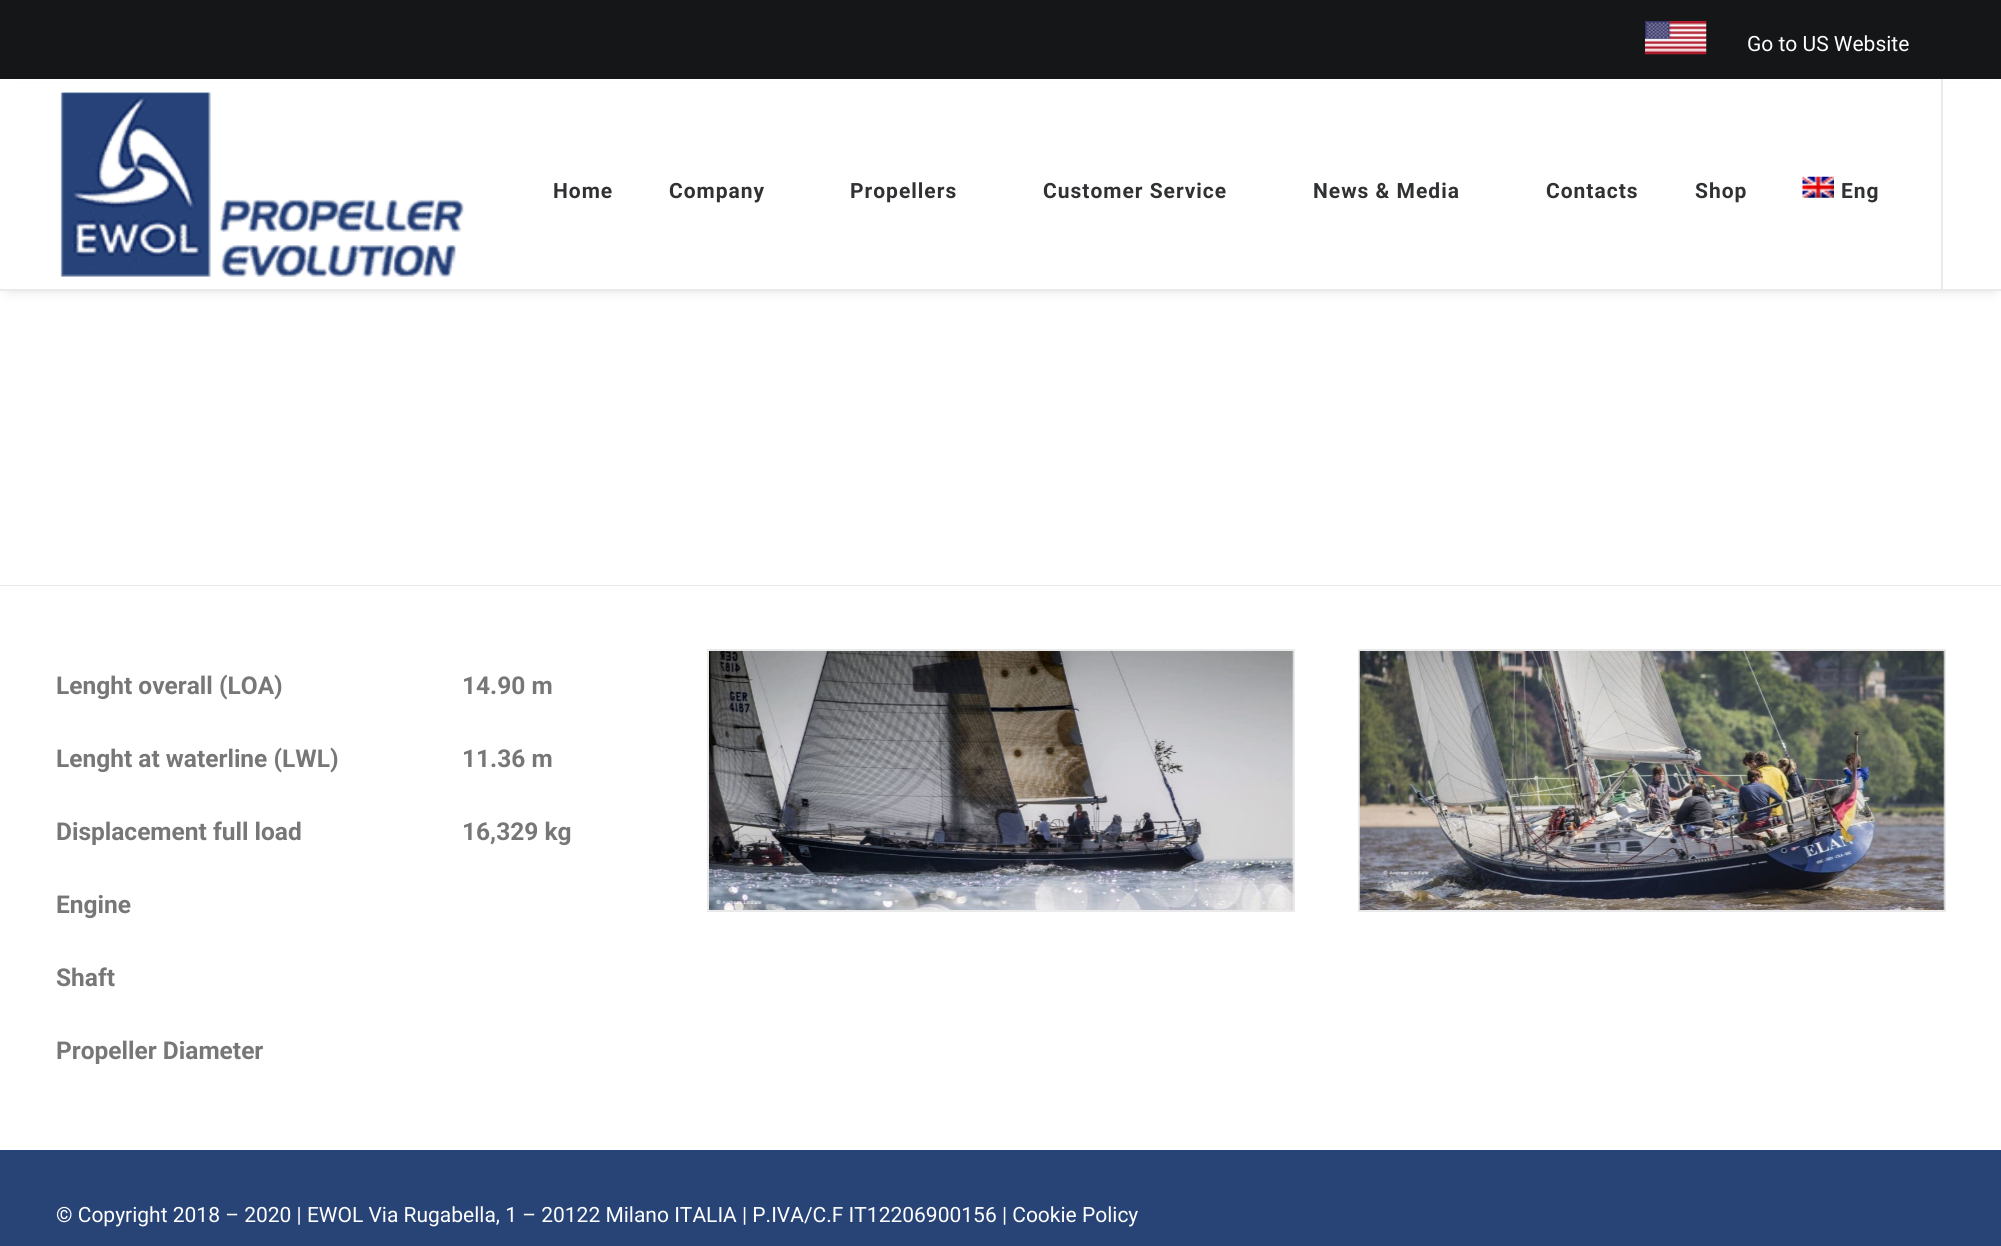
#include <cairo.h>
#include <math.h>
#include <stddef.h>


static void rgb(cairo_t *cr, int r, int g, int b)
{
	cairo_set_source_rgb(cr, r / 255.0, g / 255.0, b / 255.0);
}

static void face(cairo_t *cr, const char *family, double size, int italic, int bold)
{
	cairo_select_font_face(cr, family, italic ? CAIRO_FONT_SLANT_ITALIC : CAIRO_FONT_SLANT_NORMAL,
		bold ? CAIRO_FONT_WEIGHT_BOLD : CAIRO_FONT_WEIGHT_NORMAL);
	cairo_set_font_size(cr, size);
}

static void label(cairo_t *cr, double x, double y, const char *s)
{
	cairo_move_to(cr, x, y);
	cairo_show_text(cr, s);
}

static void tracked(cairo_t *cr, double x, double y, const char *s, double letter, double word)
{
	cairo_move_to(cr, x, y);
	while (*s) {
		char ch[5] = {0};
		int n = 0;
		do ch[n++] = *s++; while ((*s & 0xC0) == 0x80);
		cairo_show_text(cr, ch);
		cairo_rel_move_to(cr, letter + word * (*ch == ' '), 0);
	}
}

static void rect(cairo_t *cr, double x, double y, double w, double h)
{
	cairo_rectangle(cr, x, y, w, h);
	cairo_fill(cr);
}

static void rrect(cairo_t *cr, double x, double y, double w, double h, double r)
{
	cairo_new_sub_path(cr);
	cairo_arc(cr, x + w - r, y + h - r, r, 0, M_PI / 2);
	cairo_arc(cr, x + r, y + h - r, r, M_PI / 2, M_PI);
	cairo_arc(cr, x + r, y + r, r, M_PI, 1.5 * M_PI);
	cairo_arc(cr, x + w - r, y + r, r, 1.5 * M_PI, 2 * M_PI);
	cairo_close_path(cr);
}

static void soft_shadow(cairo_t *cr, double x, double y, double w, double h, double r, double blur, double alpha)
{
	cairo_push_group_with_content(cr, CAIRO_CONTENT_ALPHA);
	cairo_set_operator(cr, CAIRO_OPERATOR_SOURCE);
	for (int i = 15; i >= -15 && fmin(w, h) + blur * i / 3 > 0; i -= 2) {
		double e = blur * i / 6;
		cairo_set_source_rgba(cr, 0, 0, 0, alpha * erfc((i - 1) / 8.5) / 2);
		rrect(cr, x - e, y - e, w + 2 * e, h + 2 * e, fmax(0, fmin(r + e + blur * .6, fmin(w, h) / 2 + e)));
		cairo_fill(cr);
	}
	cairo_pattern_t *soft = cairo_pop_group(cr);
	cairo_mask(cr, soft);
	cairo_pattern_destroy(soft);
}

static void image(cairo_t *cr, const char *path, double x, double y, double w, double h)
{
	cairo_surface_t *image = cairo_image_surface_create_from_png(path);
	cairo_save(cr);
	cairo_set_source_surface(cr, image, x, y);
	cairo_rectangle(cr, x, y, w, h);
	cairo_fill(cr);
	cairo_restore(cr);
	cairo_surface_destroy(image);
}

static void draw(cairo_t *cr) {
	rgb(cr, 255, 255, 255);
	cairo_paint(cr);
	rgb(cr, 0, 0, 0);
	soft_shadow(cr, 11, 103, 1981, 177, 0, 9, 0.6);
	rgb(cr, 20, 22, 24);
	rect(cr, 0, 0, 2001, 79);
	image(cr, "image0.png", 1645, 21, 62, 34);
	face(cr, "Roboto", 21, 0, 0);
	rgb(cr, 255, 255, 255);
	label(cr, 1747, 51, "Go to US Website");
	rect(cr, 0, 84, 2001, 205);
	rgb(cr, 234, 234, 234);
	rect(cr, 0, 289, 2001, 2);
	image(cr, "image1.png", 60, 92, 405, 185);
	face(cr, "Roboto", 21, 0, 1);
	rgb(cr, 48, 49, 51);
	tracked(cr, 553, 198, "Home", 1, 0);
	tracked(cr, 669, 198, "Company", 1, 0);
	tracked(cr, 850, 198, "Propellers", 1, 0);
	tracked(cr, 1043, 198, "Customer Service", 1, 0);
	tracked(cr, 1313, 198, "News & Media", 1, 0);
	tracked(cr, 1546, 198, "Contacts", 1, 0);
	tracked(cr, 1695, 198, "Shop", 1, 0);
	image(cr, "image2.png", 1802, 176, 32, 22);
	tracked(cr, 1841, 198, "Eng", 1, 0);
	rgb(cr, 234, 234, 234);
	rect(cr, 1941, 79, 2, 210);
	rect(cr, 0, 585, 2001, 1);
	face(cr, "Roboto", 24.5, 0, 1);
	rgb(cr, 119, 119, 119);
	label(cr, 56, 694, "Lenght overall (LOA)");
	label(cr, 462, 694, "14.90 m");
	label(cr, 56, 767, "Lenght at waterline (LWL)");
	label(cr, 462, 767, "11.36 m");
	label(cr, 56, 840, "Displacement full load");
	label(cr, 462, 840, "16,329 kg");
	label(cr, 56, 913, "Engine");
	label(cr, 56, 986, "Shaft");
	label(cr, 56, 1059, "Propeller Diameter");
	cairo_rectangle(cr, 708, 650, 586, 261);
	rgb(cr, 234, 234, 234);
	cairo_stroke(cr);
	image(cr, "image3.png", 709, 651, 585, 259);
	cairo_rectangle(cr, 1359, 650, 586, 261);
	cairo_stroke(cr);
	image(cr, "image4.png", 1359, 651, 586, 259);
	rgb(cr, 40, 68, 119);
	rect(cr, 0, 1150, 2001, 96);
	face(cr, "Roboto", 21, 0, 0);
	rgb(cr, 255, 255, 255);
	label(cr, 56, 1222, "© Copyright 2018 – 2020 | EWOL Via Rugabella, 1 – 20122 Milano ITALIA | P.IVA/C.F IT12206900156 | Cookie Policy");
}

int main(void) {
	cairo_surface_t *surface = cairo_image_surface_create(CAIRO_FORMAT_RGB24, 2001, 1246);
	cairo_t *cr = cairo_create(surface);
	cairo_font_options_t *options = cairo_font_options_create();
	cairo_font_options_set_hint_metrics(options, CAIRO_HINT_METRICS_OFF);
	cairo_font_options_set_hint_style(options, CAIRO_HINT_STYLE_NONE);
	cairo_set_font_options(cr, options);
	cairo_set_miter_limit(cr, 4);
	draw(cr);
	cairo_surface_write_to_png(surface, "render.png");
	cairo_font_options_destroy(options);
	cairo_destroy(cr);
	cairo_surface_destroy(surface);
	return 0;
}
